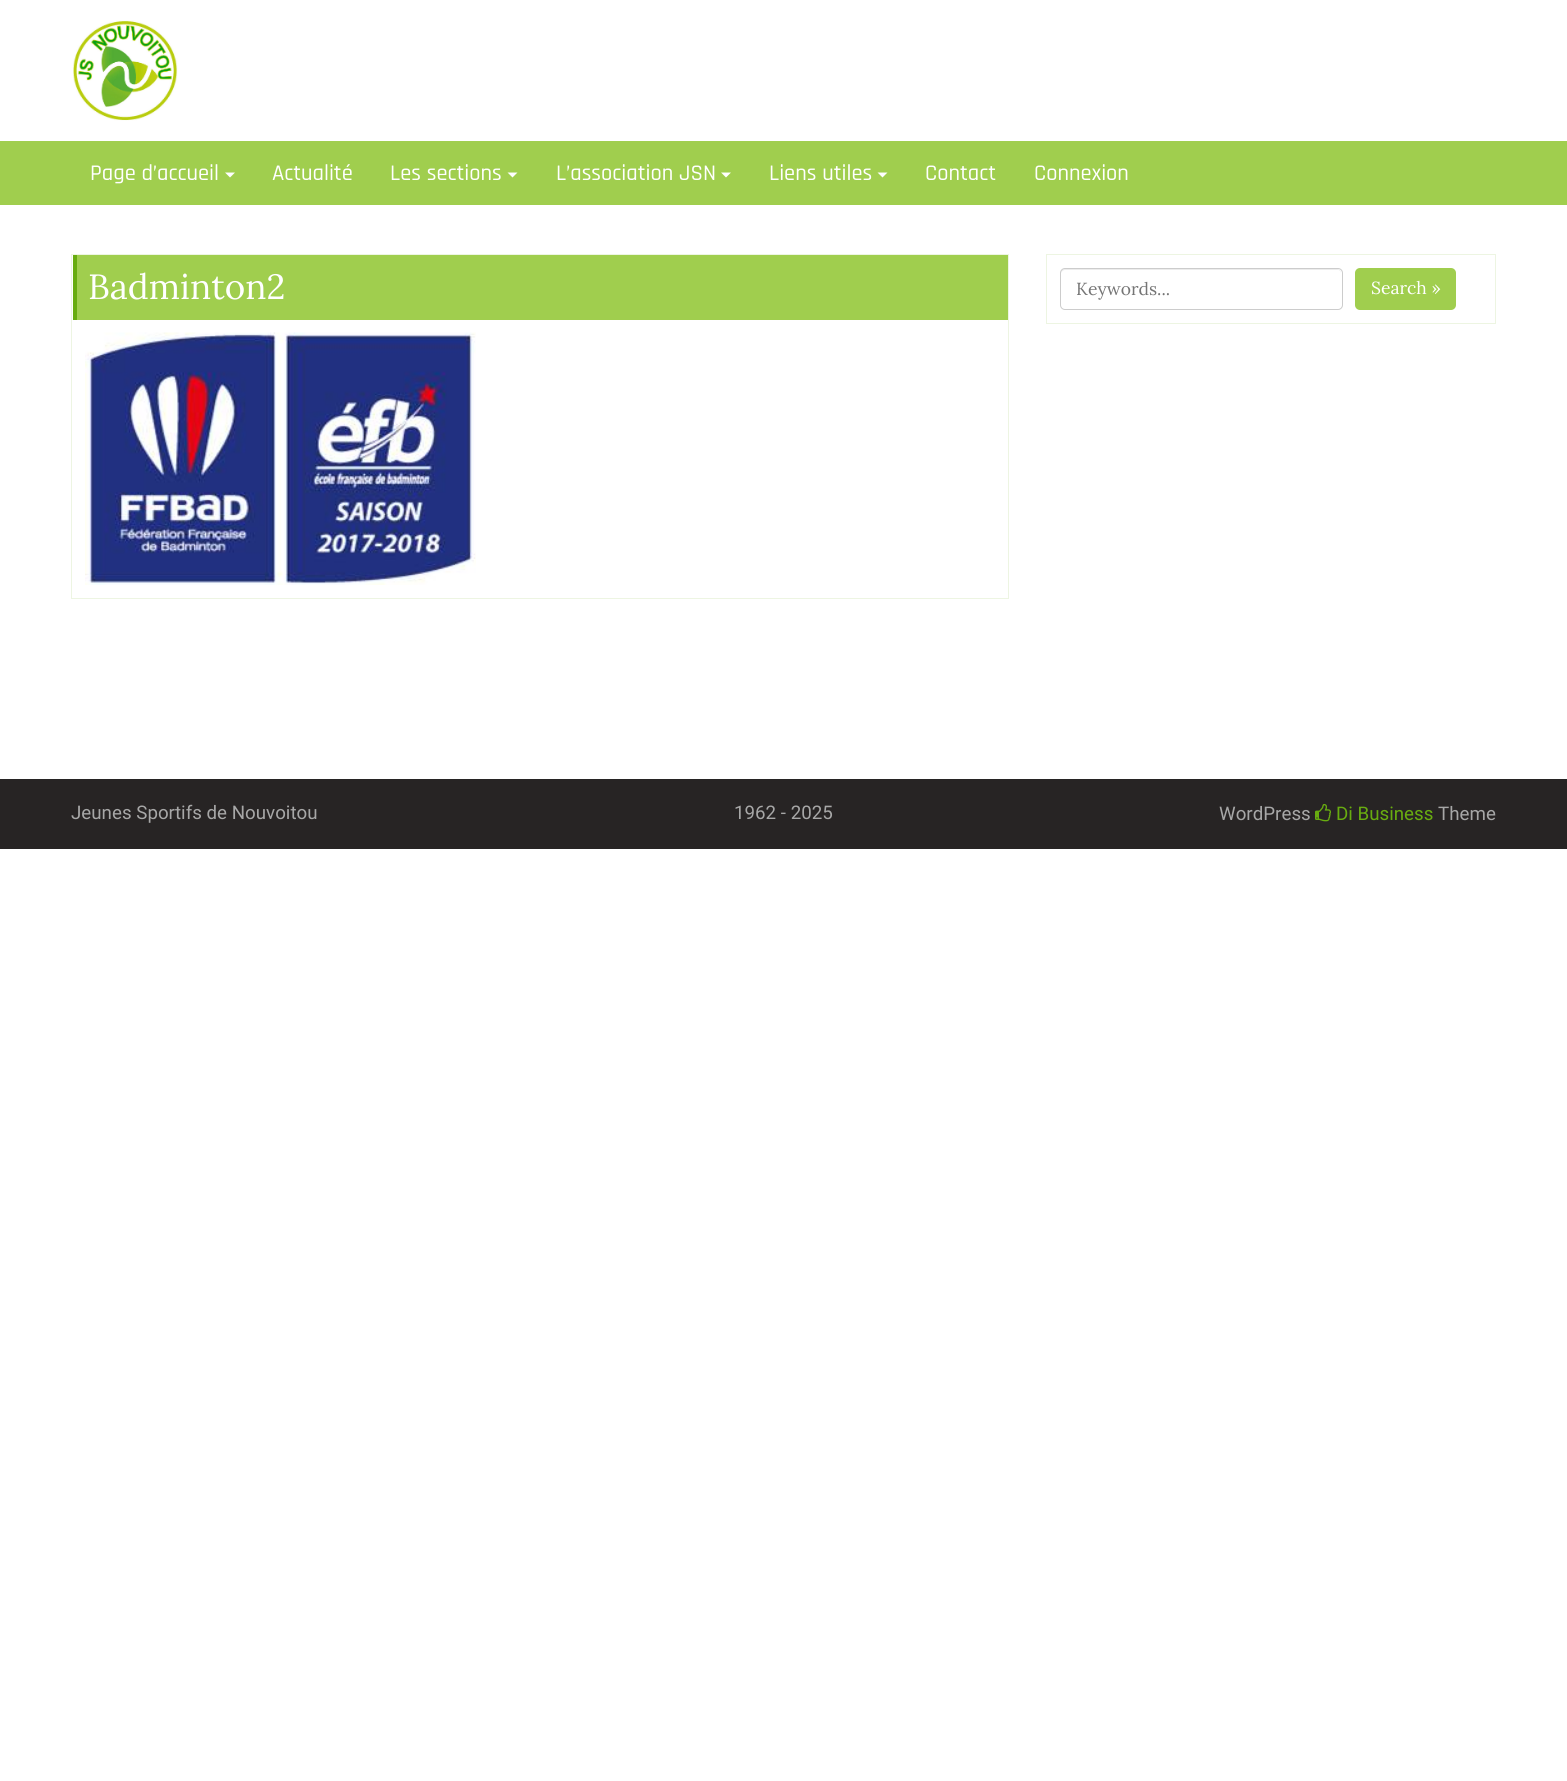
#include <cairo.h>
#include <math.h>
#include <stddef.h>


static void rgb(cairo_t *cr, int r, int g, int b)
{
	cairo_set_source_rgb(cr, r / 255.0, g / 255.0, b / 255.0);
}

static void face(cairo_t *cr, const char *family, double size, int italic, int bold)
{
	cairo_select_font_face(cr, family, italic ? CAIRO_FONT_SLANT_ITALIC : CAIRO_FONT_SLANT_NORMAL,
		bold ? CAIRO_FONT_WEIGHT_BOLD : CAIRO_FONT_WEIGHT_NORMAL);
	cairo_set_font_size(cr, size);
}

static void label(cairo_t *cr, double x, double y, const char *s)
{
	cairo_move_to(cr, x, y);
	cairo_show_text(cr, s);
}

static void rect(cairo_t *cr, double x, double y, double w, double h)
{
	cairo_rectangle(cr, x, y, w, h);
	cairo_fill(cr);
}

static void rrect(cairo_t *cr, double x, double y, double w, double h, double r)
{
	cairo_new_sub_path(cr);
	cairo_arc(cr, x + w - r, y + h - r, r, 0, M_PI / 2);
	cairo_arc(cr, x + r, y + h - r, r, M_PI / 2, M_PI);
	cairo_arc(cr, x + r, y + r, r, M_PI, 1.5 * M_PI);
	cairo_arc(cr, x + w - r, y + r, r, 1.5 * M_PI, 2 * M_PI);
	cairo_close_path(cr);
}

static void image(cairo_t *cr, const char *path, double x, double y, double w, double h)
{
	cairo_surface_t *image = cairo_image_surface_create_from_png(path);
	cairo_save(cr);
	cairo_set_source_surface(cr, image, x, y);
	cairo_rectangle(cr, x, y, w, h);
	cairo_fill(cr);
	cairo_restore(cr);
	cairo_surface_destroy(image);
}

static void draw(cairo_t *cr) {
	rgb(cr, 255, 255, 255);
	cairo_paint(cr);
	image(cr, "image0.png", 73, 20, 105, 101);
	rgb(cr, 160, 206, 78);
	rect(cr, 0, 141, 1567, 64);
	face(cr, "Rajdhani Medium", 22.5, 0, 0);
	rgb(cr, 255, 255, 255);
	label(cr, 90, 180, "Page d’accueil");
	cairo_new_path(cr);
	cairo_move_to(cr, 225, 172.5);
	cairo_line_to(cr, 235, 172.5);
	cairo_line_to(cr, 230, 177.5);
	cairo_close_path(cr);
	cairo_fill(cr);
	label(cr, 272, 180, "Actualité");
	label(cr, 390, 180, "Les sections");
	cairo_new_path(cr);
	cairo_move_to(cr, 507.5, 172.5);
	cairo_line_to(cr, 517.5, 172.5);
	cairo_line_to(cr, 512.5, 177.5);
	cairo_close_path(cr);
	cairo_fill(cr);
	label(cr, 556, 180, "L’association JSN");
	cairo_new_path(cr);
	cairo_move_to(cr, 721, 172.5);
	cairo_line_to(cr, 731, 172.5);
	cairo_line_to(cr, 726, 177.5);
	cairo_close_path(cr);
	cairo_fill(cr);
	label(cr, 769, 180, "Liens utiles");
	cairo_new_path(cr);
	cairo_move_to(cr, 877.5, 172.5);
	cairo_line_to(cr, 887.5, 172.5);
	cairo_line_to(cr, 882.5, 177.5);
	cairo_close_path(cr);
	cairo_fill(cr);
	label(cr, 925, 180, "Contact");
	label(cr, 1034, 180, "Connexion");
	cairo_rectangle(cr, 71.5, 254.5, 937, 344);
	rgb(cr, 237, 245, 226);
	cairo_set_line_width(cr, 1);
	cairo_stroke(cr);
	rgb(cr, 160, 206, 78);
	rect(cr, 77, 255, 931, 65);
	rgb(cr, 104, 172, 16);
	rect(cr, 73, 255, 4, 65);
	face(cr, "Lora", 35, 0, 0);
	rgb(cr, 255, 255, 255);
	label(cr, 88, 299, "Badminton2");
	image(cr, "image1.png", 85, 332, 391, 253);
	cairo_rectangle(cr, 1046.5, 254.5, 449, 69);
	rgb(cr, 237, 245, 226);
	cairo_stroke(cr);
	rgb(cr, 236, 236, 236);
	cairo_new_path(cr);
	cairo_move_to(cr, 1065, 270);
	cairo_line_to(cr, 1338, 270);
	cairo_curve_to(cr, 1340, 270, 1341, 272, 1341, 274);
	cairo_curve_to(cr, 1341, 271, 1340, 269, 1337, 269);
	cairo_line_to(cr, 1065, 269);
	cairo_curve_to(cr, 1062, 269, 1061, 271, 1061, 274);
	cairo_curve_to(cr, 1061, 272, 1063, 270, 1065, 270);
	cairo_close_path(cr);
	cairo_fill(cr);
	rrect(cr, 1060.5, 268.5, 282, 41, 4.5);
	rgb(cr, 204, 204, 204);
	cairo_stroke(cr);
	face(cr, "Lora", 17.5, 0, 0);
	rgb(cr, 117, 117, 117);
	label(cr, 1076, 295, "Keywords...");
	rgb(cr, 160, 206, 78);
	rrect(cr, 1355, 268, 101, 42, 5);
	cairo_fill(cr);
	rgb(cr, 255, 255, 255);
	label(cr, 1371, 294, "Search »");
	rgb(cr, 39, 36, 36);
	rect(cr, 0, 779, 1567, 70);
	face(cr, "Roboto", 18.75, 0, 0);
	rgb(cr, 167, 167, 167);
	label(cr, 71, 819, "Jeunes Sportifs de Nouvoitou");
	label(cr, 734, 819, "1962 - 2025");
	label(cr, 1219, 820, "WordPress");
	image(cr, "image2.png", 1315, 804, 16, 18);
	rgb(cr, 104, 172, 16);
	label(cr, 1336, 820, "Di Business");
	rgb(cr, 167, 167, 167);
	label(cr, 1438, 820, "Theme");
}

int main(void) {
	cairo_surface_t *surface = cairo_image_surface_create(CAIRO_FORMAT_RGB24, 1567, 1781);
	cairo_t *cr = cairo_create(surface);
	cairo_font_options_t *options = cairo_font_options_create();
	cairo_font_options_set_hint_metrics(options, CAIRO_HINT_METRICS_OFF);
	cairo_font_options_set_hint_style(options, CAIRO_HINT_STYLE_NONE);
	cairo_set_font_options(cr, options);
	cairo_set_miter_limit(cr, 4);
	draw(cr);
	cairo_surface_write_to_png(surface, "render.png");
	cairo_font_options_destroy(options);
	cairo_destroy(cr);
	cairo_surface_destroy(surface);
	return 0;
}
